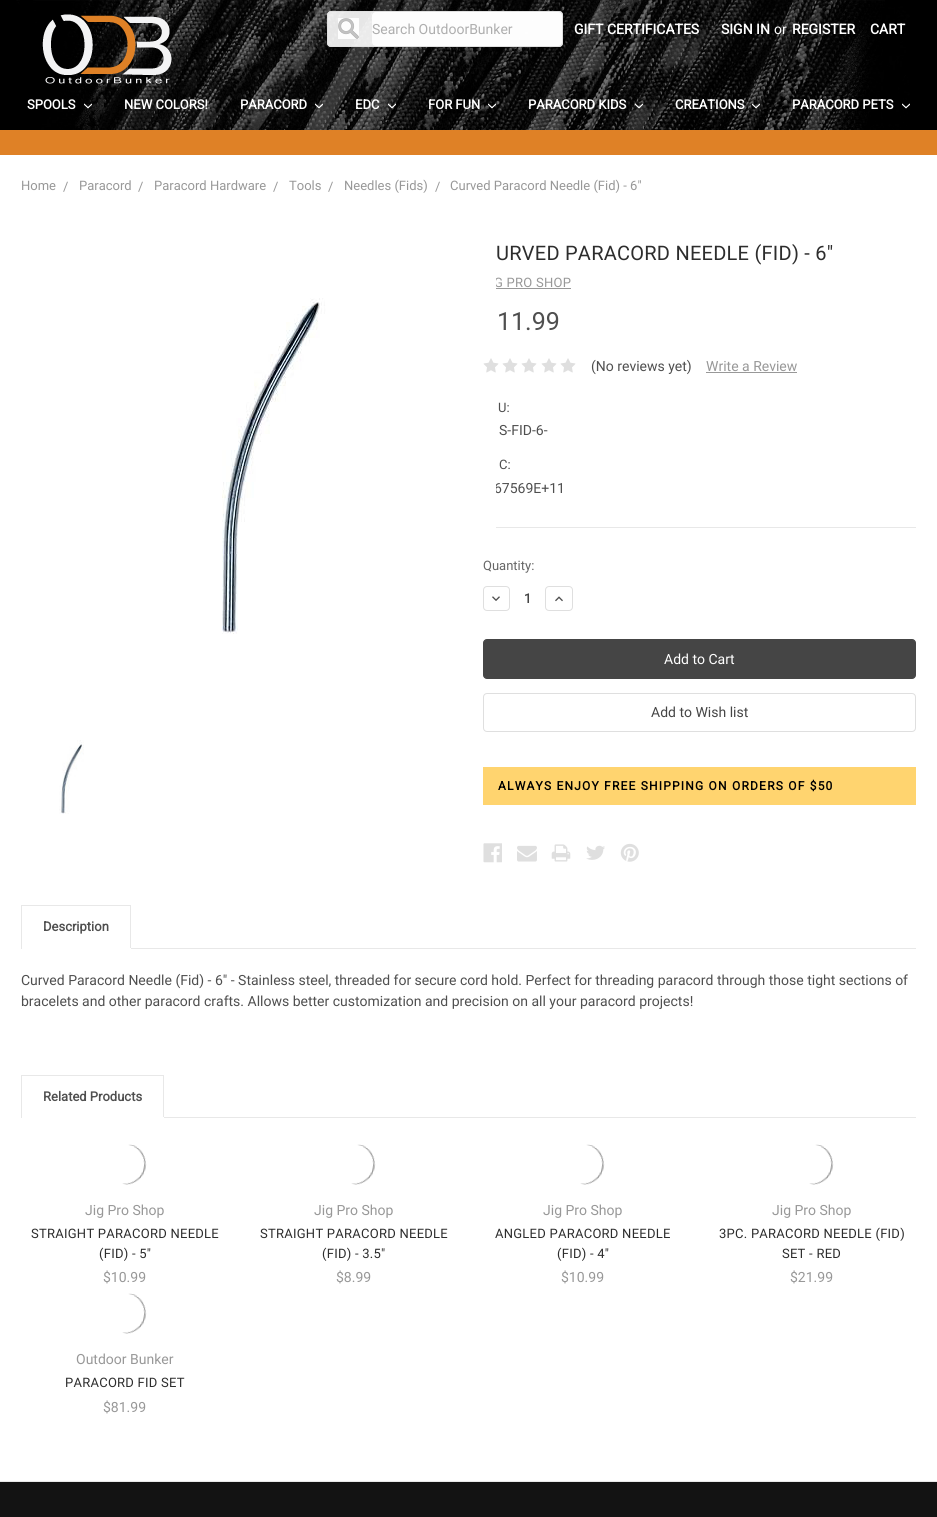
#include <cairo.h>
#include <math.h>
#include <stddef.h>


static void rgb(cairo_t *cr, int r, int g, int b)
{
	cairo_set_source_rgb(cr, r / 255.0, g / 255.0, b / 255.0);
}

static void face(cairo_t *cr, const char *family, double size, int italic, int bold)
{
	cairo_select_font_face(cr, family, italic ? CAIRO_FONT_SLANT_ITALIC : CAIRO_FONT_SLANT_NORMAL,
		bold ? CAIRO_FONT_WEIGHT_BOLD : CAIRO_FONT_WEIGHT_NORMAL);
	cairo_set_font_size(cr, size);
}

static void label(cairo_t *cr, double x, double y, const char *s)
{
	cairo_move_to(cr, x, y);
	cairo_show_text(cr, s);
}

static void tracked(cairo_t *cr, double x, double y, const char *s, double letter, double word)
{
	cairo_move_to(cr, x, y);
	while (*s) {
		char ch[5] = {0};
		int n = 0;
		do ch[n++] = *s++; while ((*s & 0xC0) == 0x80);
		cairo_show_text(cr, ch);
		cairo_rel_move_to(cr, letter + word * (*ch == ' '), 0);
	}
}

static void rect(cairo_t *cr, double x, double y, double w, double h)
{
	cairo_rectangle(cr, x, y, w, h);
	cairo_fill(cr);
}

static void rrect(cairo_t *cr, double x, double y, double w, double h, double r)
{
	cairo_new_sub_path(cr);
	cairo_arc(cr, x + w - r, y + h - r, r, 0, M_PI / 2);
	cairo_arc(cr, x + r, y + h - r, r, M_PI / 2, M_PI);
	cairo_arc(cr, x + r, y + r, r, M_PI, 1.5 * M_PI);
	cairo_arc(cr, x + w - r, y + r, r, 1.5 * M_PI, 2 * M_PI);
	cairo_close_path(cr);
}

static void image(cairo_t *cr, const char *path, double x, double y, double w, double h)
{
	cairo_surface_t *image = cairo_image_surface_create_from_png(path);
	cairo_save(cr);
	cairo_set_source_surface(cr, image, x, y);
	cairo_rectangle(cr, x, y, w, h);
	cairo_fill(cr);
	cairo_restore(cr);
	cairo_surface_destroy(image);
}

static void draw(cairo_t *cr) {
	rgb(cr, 255, 255, 255);
	cairo_paint(cr);
	image(cr, "image0.png", 0, 0, 937, 130);
	image(cr, "image1.png", 42, 14, 130, 70);
	cairo_set_source_rgba(cr, 1, 1, 1, 0.9);
	rrect(cr, 327, 11, 236, 36, 4);
	cairo_fill(cr);
	rrect(cr, 327.5, 11.5, 235, 35, 3.5);
	cairo_set_source_rgba(cr, 0.875, 0.875, 0.875, 0.9);
	cairo_set_line_width(cr, 1);
	cairo_stroke(cr);
	image(cr, "image2.png", 338, 18, 21, 21);
	cairo_set_source_rgba(cr, 1, 1, 1, 0.9);
	rrect(cr, 372, 12, 190, 34, 4);
	cairo_fill(cr);
	face(cr, "Roboto", 14, 0, 0);
	rgb(cr, 174, 174, 174);
	label(cr, 372, 34, "Search OutdoorBunker");
	face(cr, "Roboto", 14, 0, 1);
	rgb(cr, 255, 255, 255);
	label(cr, 574, 34, "GIFT CERTIFICATES");
	label(cr, 721, 34, "SIGN IN");
	face(cr, "Roboto", 14, 0, 0);
	label(cr, 774, 34, "or");
	face(cr, "Roboto", 14, 0, 1);
	label(cr, 792, 34, "REGISTER");
	label(cr, 870, 34, "CART");
	face(cr, "Roboto", 13, 0, 1);
	label(cr, 27, 109, "SPOOLS");
	image(cr, "image3.png", 84, 103, 8, 6);
	label(cr, 124, 109, "NEW COLORS!");
	label(cr, 240, 109, "PARACORD");
	image(cr, "image4.png", 315, 103, 8, 6);
	label(cr, 355, 109, "EDC");
	image(cr, "image5.png", 388, 103, 8, 6);
	label(cr, 428, 109, "FOR FUN");
	image(cr, "image6.png", 488, 103, 8, 6);
	label(cr, 528, 109, "PARACORD KIDS");
	image(cr, "image7.png", 635, 103, 8, 6);
	label(cr, 675, 109, "CREATIONS");
	image(cr, "image8.png", 752, 103, 8, 6);
	label(cr, 792, 109, "PARACORD PETS");
	image(cr, "image9.png", 902, 103, 8, 6);
	rgb(cr, 223, 129, 38);
	rect(cr, 0, 130, 937, 25);
	face(cr, "Roboto", 13, 0, 0);
	rgb(cr, 152, 152, 152);
	label(cr, 21, 190, "Home");
	label(cr, 63, 191, "/");
	label(cr, 79, 190, "Paracord");
	label(cr, 138, 191, "/");
	label(cr, 154, 190, "Paracord Hardware");
	label(cr, 273, 191, "/");
	label(cr, 289, 190, "Tools");
	label(cr, 328, 191, "/");
	label(cr, 344, 190, "Needles (Fids)");
	label(cr, 435, 191, "/");
	label(cr, 450, 190, "Curved Paracord Needle (Fid) - 6\"");
	tracked(cr, 494, 287, "G PRO SHOP", 0.25, 0);
	face(cr, "Roboto", 14, 0, 0);
	rgb(cr, 79, 79, 79);
	label(cr, 494, 493, "67569E+11");
	image(cr, "image10.png", 222, 245, 274, 389);
	image(cr, "image11.png", 59, 740, 25, 74);
	rgb(cr, 232, 232, 232);
	rect(cr, 496, 527, 420, 1);
	face(cr, "Roboto", 20, 0, 0);
	rgb(cr, 45, 45, 45);
	tracked(cr, 496, 260, "URVED PARACORD NEEDLE (FID) - 6\"", 0.25, 0);
	rgb(cr, 152, 152, 152);
	rect(cr, 496, 288, 75, 1);
	face(cr, "Roboto", 25, 0, 0);
	rgb(cr, 79, 79, 79);
	label(cr, 497, 330, "11.99");
	image(cr, "image12.png", 483, 358, 16, 15);
	image(cr, "image12.png", 502, 358, 16, 15);
	image(cr, "image12.png", 521, 358, 16, 15);
	image(cr, "image12.png", 541, 358, 16, 15);
	image(cr, "image12.png", 560, 358, 16, 15);
	face(cr, "Roboto", 14, 0, 0);
	label(cr, 591, 371, "(No reviews yet)");
	rgb(cr, 152, 152, 152);
	label(cr, 706, 371, "Write a Review");
	rect(cr, 706, 372, 91, 1);
	face(cr, "Roboto", 13, 0, 0);
	rgb(cr, 79, 79, 79);
	label(cr, 498, 412, "U:");
	face(cr, "Roboto", 14, 0, 0);
	label(cr, 499, 435, "S-FID-6-");
	face(cr, "Roboto", 13, 0, 0);
	label(cr, 499, 469, "C:");
	rgb(cr, 102, 102, 102);
	label(cr, 483, 570, "Quantity:");
	rrect(cr, 483.5, 586.5, 26, 24, 3.5);
	rgb(cr, 223, 223, 223);
	cairo_stroke(cr);
	image(cr, "image13.png", 492, 596, 8, 5);
	face(cr, "Roboto", 13, 0, 1);
	rgb(cr, 69, 69, 69);
	label(cr, 524, 603, "1");
	rrect(cr, 545.5, 586.5, 27, 24, 3.5);
	rgb(cr, 223, 223, 223);
	cairo_stroke(cr);
	image(cr, "image14.png", 555, 596, 8, 6);
	rgb(cr, 69, 69, 69);
	rrect(cr, 483.5, 639.5, 432, 39, 3.5);
	cairo_fill_preserve(cr);
	cairo_stroke(cr);
	face(cr, "Roboto", 14, 0, 0);
	rgb(cr, 255, 255, 255);
	label(cr, 664, 664, "Add to Cart");
	rrect(cr, 483.5, 693.5, 432, 38, 3.5);
	rgb(cr, 223, 223, 223);
	cairo_stroke(cr);
	rgb(cr, 69, 69, 69);
	label(cr, 651, 717, "Add to Wish list");
	rgb(cr, 255, 212, 111);
	rect(cr, 483, 767, 433, 38);
	face(cr, "Roboto", 12, 0, 1);
	rgb(cr, 0, 0, 0);
	tracked(cr, 498, 790, "ALWAYS ENJOY FREE SHIPPING ON ORDERS OF $50", 1.2, 0);
	image(cr, "image15.png", 483, 843, 19, 20);
	image(cr, "image16.png", 517, 845, 20, 17);
	image(cr, "image17.png", 551, 844, 20, 18);
	image(cr, "image18.png", 586, 845, 19, 15);
	image(cr, "image19.png", 620, 843, 19, 19);
	rgb(cr, 232, 232, 232);
	rect(cr, 131, 948, 785, 1);
	rect(cr, 21, 905, 110, 1);
	rect(cr, 130, 905, 1, 44);
	rgb(cr, 255, 255, 255);
	rect(cr, 130, 948, 1, 1);
	rgb(cr, 232, 232, 232);
	rect(cr, 21, 905, 1, 44);
	face(cr, "Roboto", 13, 0, 1);
	rgb(cr, 79, 79, 79);
	label(cr, 43, 931, "Description");
	face(cr, "Roboto", 14, 0, 0);
	label(cr, 21, 985, "Curved Paracord Needle (Fid) - 6\" - Stainless steel, threaded for secure cord hold. Perfect for threading paracord through those tight sections of");
	label(cr, 21, 1006, "bracelets and other paracord crafts. Allows better customization and precision on all your paracord projects!");
	rgb(cr, 232, 232, 232);
	rect(cr, 164, 1117, 752, 1);
	rect(cr, 21, 1075, 143, 1);
	rect(cr, 163, 1075, 1, 43);
	rgb(cr, 255, 255, 255);
	rect(cr, 163, 1117, 1, 1);
	rgb(cr, 232, 232, 232);
	rect(cr, 21, 1075, 1, 43);
	face(cr, "Roboto", 13, 0, 1);
	rgb(cr, 79, 79, 79);
	label(cr, 43, 1101, "Related Products");
	image(cr, "image20.png", 122, 1144, 25, 41);
	face(cr, "Roboto", 14, 0, 0);
	rgb(cr, 152, 152, 152);
	label(cr, 85, 1215, "Jig Pro Shop");
	face(cr, "Roboto", 13, 0, 0);
	rgb(cr, 45, 45, 45);
	tracked(cr, 31, 1238, "STRAIGHT PARACORD NEEDLE", 0.25, 0);
	tracked(cr, 99, 1258, "(FID) - 5\"", 0.25, 0);
	face(cr, "Roboto", 14, 0, 0);
	rgb(cr, 152, 152, 152);
	label(cr, 103, 1282, "$10.99");
	image(cr, "image20.png", 351, 1144, 25, 41);
	label(cr, 314, 1215, "Jig Pro Shop");
	face(cr, "Roboto", 13, 0, 0);
	rgb(cr, 45, 45, 45);
	tracked(cr, 260, 1238, "STRAIGHT PARACORD NEEDLE", 0.25, 0);
	tracked(cr, 322, 1258, "(FID) - 3.5\"", 0.25, 0);
	face(cr, "Roboto", 14, 0, 0);
	rgb(cr, 152, 152, 152);
	label(cr, 336, 1282, "$8.99");
	image(cr, "image20.png", 580, 1144, 25, 41);
	label(cr, 543, 1215, "Jig Pro Shop");
	face(cr, "Roboto", 13, 0, 0);
	rgb(cr, 45, 45, 45);
	tracked(cr, 495, 1238, "ANGLED PARACORD NEEDLE", 0.25, 0);
	tracked(cr, 557, 1258, "(FID) - 4\"", 0.25, 0);
	face(cr, "Roboto", 14, 0, 0);
	rgb(cr, 152, 152, 152);
	label(cr, 561, 1282, "$10.99");
	image(cr, "image21.png", 809, 1144, 25, 41);
	label(cr, 772, 1215, "Jig Pro Shop");
	face(cr, "Roboto", 13, 0, 0);
	rgb(cr, 45, 45, 45);
	tracked(cr, 719, 1238, "3PC. PARACORD NEEDLE (FID)", 0.25, 0);
	tracked(cr, 782, 1258, "SET - RED", 0.25, 0);
	face(cr, "Roboto", 14, 0, 0);
	rgb(cr, 152, 152, 152);
	label(cr, 790, 1282, "$21.99");
	image(cr, "image20.png", 122, 1293, 25, 41);
	label(cr, 76, 1364, "Outdoor Bunker");
	face(cr, "Roboto", 13, 0, 0);
	rgb(cr, 45, 45, 45);
	tracked(cr, 65, 1387, "PARACORD FID SET", 0.25, 0);
	face(cr, "Roboto", 14, 0, 0);
	rgb(cr, 152, 152, 152);
	label(cr, 103, 1412, "$81.99");
	rgb(cr, 19, 19, 19);
	rect(cr, 0, 1482, 937, 35);
	rgb(cr, 232, 232, 232);
	rect(cr, 0, 1481, 937, 1);
}

int main(void) {
	cairo_surface_t *surface = cairo_image_surface_create(CAIRO_FORMAT_RGB24, 937, 1517);
	cairo_t *cr = cairo_create(surface);
	cairo_font_options_t *options = cairo_font_options_create();
	cairo_font_options_set_hint_metrics(options, CAIRO_HINT_METRICS_OFF);
	cairo_font_options_set_hint_style(options, CAIRO_HINT_STYLE_NONE);
	cairo_set_font_options(cr, options);
	cairo_set_miter_limit(cr, 4);
	draw(cr);
	cairo_surface_write_to_png(surface, "render.png");
	cairo_font_options_destroy(options);
	cairo_destroy(cr);
	cairo_surface_destroy(surface);
	return 0;
}
